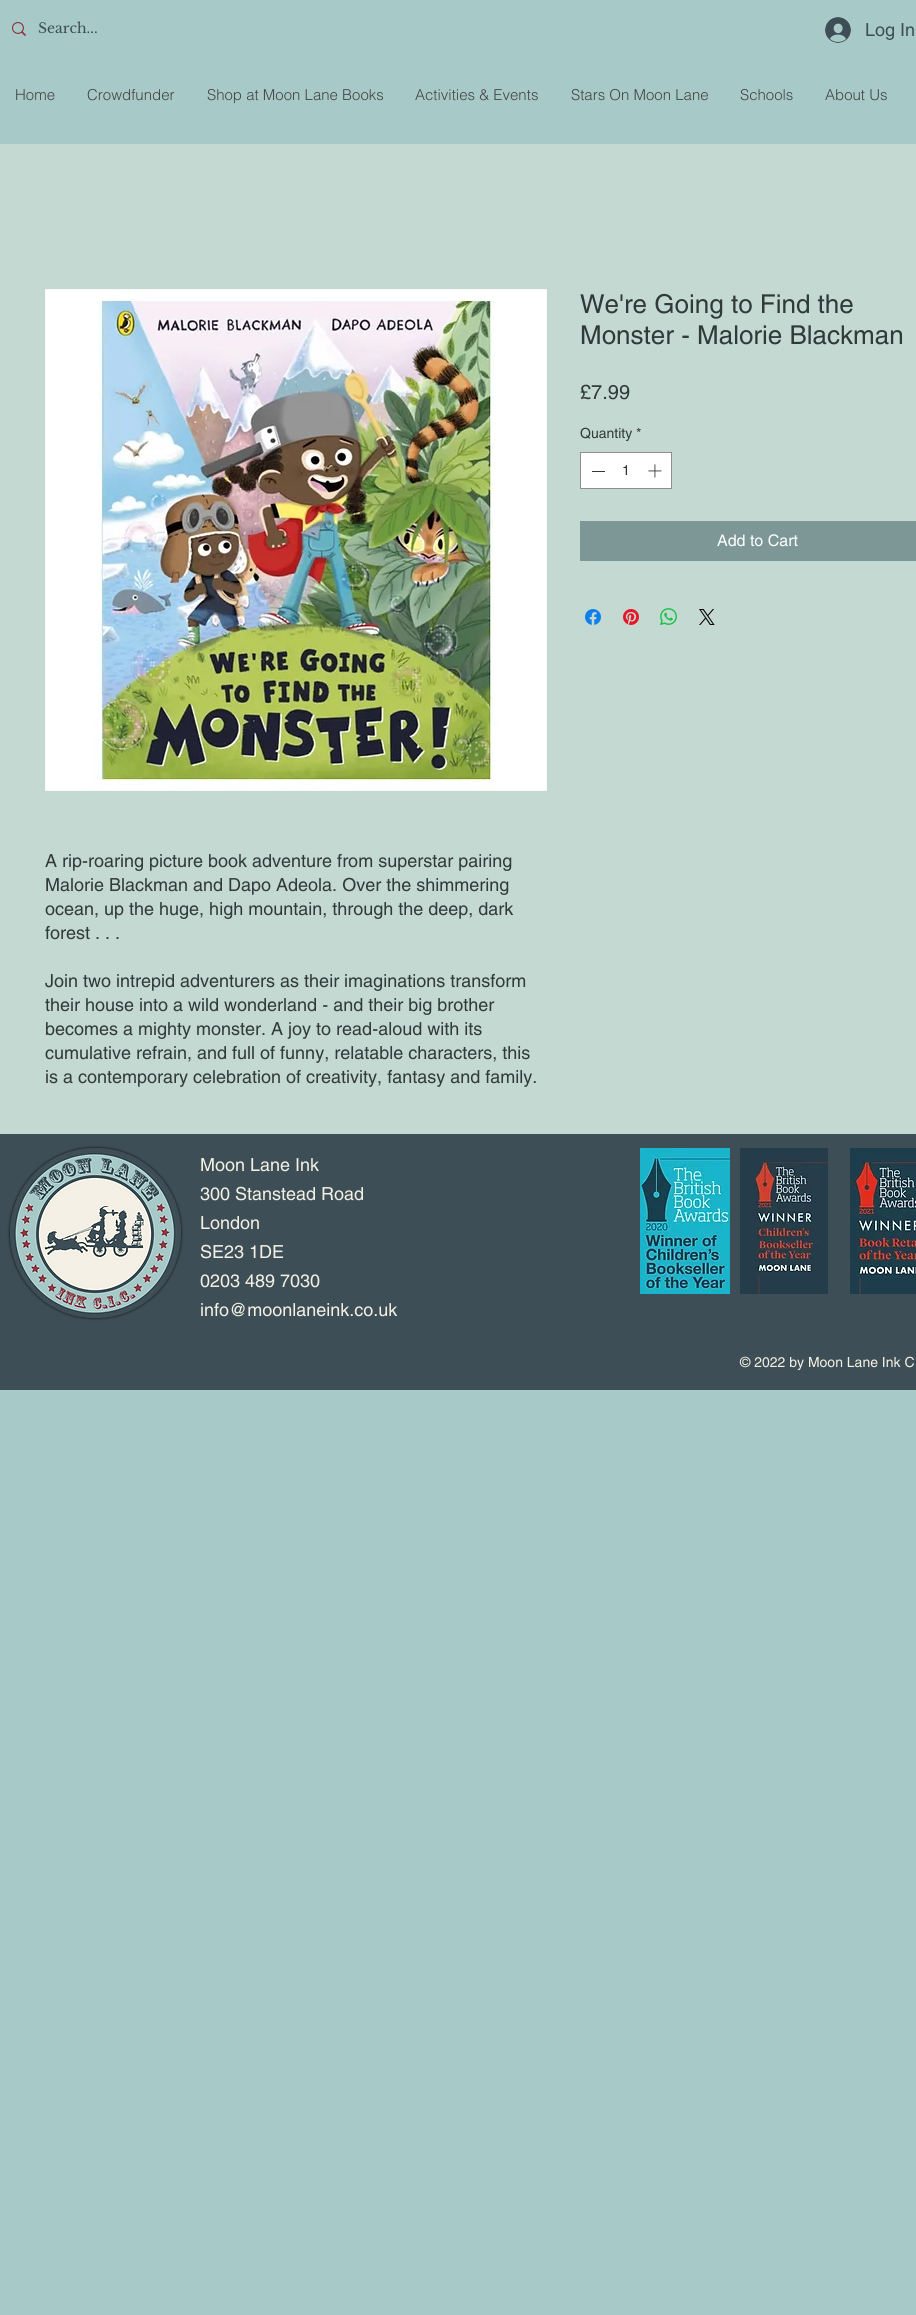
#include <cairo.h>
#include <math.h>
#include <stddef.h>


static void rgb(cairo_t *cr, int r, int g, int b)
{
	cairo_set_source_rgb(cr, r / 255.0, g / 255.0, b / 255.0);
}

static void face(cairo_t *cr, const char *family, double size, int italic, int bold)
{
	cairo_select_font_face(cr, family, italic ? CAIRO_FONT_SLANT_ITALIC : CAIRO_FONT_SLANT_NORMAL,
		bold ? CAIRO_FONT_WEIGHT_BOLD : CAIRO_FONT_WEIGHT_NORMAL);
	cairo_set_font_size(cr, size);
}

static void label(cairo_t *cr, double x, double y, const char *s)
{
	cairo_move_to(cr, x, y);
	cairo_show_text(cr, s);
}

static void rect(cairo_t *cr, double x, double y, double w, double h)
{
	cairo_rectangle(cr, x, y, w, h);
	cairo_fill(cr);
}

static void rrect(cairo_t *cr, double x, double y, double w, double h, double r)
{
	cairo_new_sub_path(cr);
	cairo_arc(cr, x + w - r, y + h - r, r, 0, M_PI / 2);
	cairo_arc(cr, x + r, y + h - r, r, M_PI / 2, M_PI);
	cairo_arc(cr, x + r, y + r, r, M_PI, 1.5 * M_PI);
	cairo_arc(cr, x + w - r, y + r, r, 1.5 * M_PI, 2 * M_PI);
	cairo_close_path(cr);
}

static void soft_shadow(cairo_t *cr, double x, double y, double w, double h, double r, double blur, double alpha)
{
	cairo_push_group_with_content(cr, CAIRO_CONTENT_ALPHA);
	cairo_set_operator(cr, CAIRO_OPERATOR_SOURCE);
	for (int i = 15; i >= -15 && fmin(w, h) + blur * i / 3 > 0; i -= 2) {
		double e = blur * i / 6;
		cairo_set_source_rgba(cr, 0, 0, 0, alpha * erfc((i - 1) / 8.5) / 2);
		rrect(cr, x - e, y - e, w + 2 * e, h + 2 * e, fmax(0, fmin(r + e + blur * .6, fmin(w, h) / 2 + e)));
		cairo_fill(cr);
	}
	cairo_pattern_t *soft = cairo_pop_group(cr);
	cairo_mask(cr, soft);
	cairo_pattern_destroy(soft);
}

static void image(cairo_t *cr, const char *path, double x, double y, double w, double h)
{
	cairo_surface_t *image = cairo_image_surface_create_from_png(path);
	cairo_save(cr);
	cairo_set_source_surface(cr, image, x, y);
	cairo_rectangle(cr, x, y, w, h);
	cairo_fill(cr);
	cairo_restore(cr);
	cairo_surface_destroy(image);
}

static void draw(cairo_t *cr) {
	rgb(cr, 167, 201, 200);
	cairo_paint(cr);
	image(cr, "image0.png", 12, 22, 14, 14);
	face(cr, "Libre Baskerville", 14, 0, 0);
	rgb(cr, 62, 78, 86);
	label(cr, 38, 33, "Search...");
	image(cr, "image1.png", 825, 17, 26, 26);
	face(cr, "helvetica", 18, 0, 0);
	label(cr, 865, 36, "Log In");
	face(cr, "helvetica Light", 15, 0, 0);
	rgb(cr, 68, 68, 68);
	label(cr, 15, 100, "Home");
	label(cr, 87, 100, "Crowdfunder");
	label(cr, 207, 100, "Shop at Moon Lane Books");
	label(cr, 415, 100, "Activities & Events");
	label(cr, 571, 100, "Stars On Moon Lane");
	label(cr, 740, 100, "Schools");
	label(cr, 825, 100, "About Us");
	rgb(cr, 196, 217, 209);
	rect(cr, 0, 144, 916, 990);
	face(cr, "helvetica", 26, 0, 0);
	rgb(cr, 49, 58, 58);
	label(cr, 580, 313, "We're Going to Find the");
	label(cr, 580, 344, "Monster - Malorie Blackman");
	face(cr, "helvetica", 20, 0, 0);
	label(cr, 580, 399, "£7.99");
	face(cr, "helvetica", 14, 0, 0);
	label(cr, 580, 438, "Quantity *");
	rgb(cr, 255, 255, 255);
	cairo_rectangle(cr, 580.5, 452.5, 91, 36);
	cairo_fill_preserve(cr);
	rgb(cr, 145, 141, 141);
	cairo_set_line_width(cr, 1);
	cairo_stroke(cr);
	rgb(cr, 49, 58, 58);
	rect(cr, 592, 471, 13, 1);
	label(cr, 622, 475, "1");
	image(cr, "image2.png", 648, 464, 14, 14);
	rgb(cr, 125, 151, 150);
	rect(cr, 580, 521, 336, 40);
	face(cr, "helvetica", 16, 0, 0);
	rgb(cr, 255, 255, 255);
	label(cr, 717, 546, "Add to Cart");
	image(cr, "image3.png", 585, 609, 16, 16);
	image(cr, "image4.png", 623, 609, 16, 16);
	image(cr, "image5.png", 660, 608, 17, 17);
	image(cr, "image6.png", 699, 609, 16, 16);
	cairo_rectangle(cr, 45.5, 289.5, 501, 501);
	rgb(cr, 248, 248, 248);
	cairo_stroke(cr);
	image(cr, "image7.png", 46, 290, 500, 500);
	face(cr, "helvetica", 18, 0, 0);
	rgb(cr, 49, 58, 58);
	label(cr, 45, 867, "A rip-roaring picture book adventure from superstar pairing");
	label(cr, 45, 891, "Malorie Blackman and Dapo Adeola. Over the shimmering");
	label(cr, 45, 915, "ocean, up the huge, high mountain, through the deep, dark");
	label(cr, 45, 939, "forest . . .");
	label(cr, 45, 987, "Join two intrepid adventurers as their imaginations transform");
	label(cr, 45, 1011, "their house into a wild wonderland - and their big brother");
	label(cr, 45, 1035, "becomes a mighty monster. A joy to read-aloud with its");
	label(cr, 45, 1059, "cumulative refrain, and full of funny, relatable characters, this");
	label(cr, 45, 1083, "is a contemporary celebration of creativity, fantasy and family.");
	rgb(cr, 62, 78, 86);
	rect(cr, 0, 1134, 916, 256);
	cairo_save(cr);
	cairo_set_fill_rule(cr, CAIRO_FILL_RULE_EVEN_ODD);
	cairo_new_path(cr);
	cairo_move_to(cr, 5, 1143);
	cairo_line_to(cr, 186, 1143);
	cairo_line_to(cr, 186, 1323);
	cairo_line_to(cr, 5, 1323);
	cairo_close_path(cr);
	cairo_move_to(cr, 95, 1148);
	cairo_line_to(cr, 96, 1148);
	cairo_curve_to(cr, 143, 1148, 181, 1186, 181, 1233);
	cairo_curve_to(cr, 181, 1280, 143, 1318, 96, 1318);
	cairo_line_to(cr, 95, 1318);
	cairo_curve_to(cr, 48, 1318, 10, 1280, 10, 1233);
	cairo_curve_to(cr, 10, 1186, 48, 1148, 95, 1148);
	cairo_close_path(cr);
	cairo_clip(cr);
	rgb(cr, 0, 0, 0);
	soft_shadow(cr, 9, 1147, 173, 172, 86, 1, 0.45);
	cairo_restore(cr);
	image(cr, "image8.png", 13, 1152, 164, 163);
	rgb(cr, 243, 240, 228);
	label(cr, 200, 1171, "Moon Lane Ink");
	label(cr, 200, 1200, "300 Stanstead Road");
	label(cr, 200, 1229, "London");
	label(cr, 200, 1258, "SE23 1DE");
	label(cr, 200, 1287, "0203 489 7030");
	label(cr, 200, 1316, "info@moonlaneink.co.uk");
	image(cr, "image9.png", 640, 1148, 90, 146);
	image(cr, "image10.png", 740, 1148, 88, 146);
	image(cr, "image11.png", 850, 1148, 66, 146);
	face(cr, "helvetica", 14, 0, 0);
	label(cr, 740, 1367, "© 2022 by Moon Lane Ink C");
}

int main(void) {
	cairo_surface_t *surface = cairo_image_surface_create(CAIRO_FORMAT_RGB24, 916, 2315);
	cairo_t *cr = cairo_create(surface);
	cairo_font_options_t *options = cairo_font_options_create();
	cairo_font_options_set_hint_metrics(options, CAIRO_HINT_METRICS_OFF);
	cairo_font_options_set_hint_style(options, CAIRO_HINT_STYLE_NONE);
	cairo_set_font_options(cr, options);
	cairo_set_miter_limit(cr, 4);
	draw(cr);
	cairo_surface_write_to_png(surface, "render.png");
	cairo_font_options_destroy(options);
	cairo_destroy(cr);
	cairo_surface_destroy(surface);
	return 0;
}
